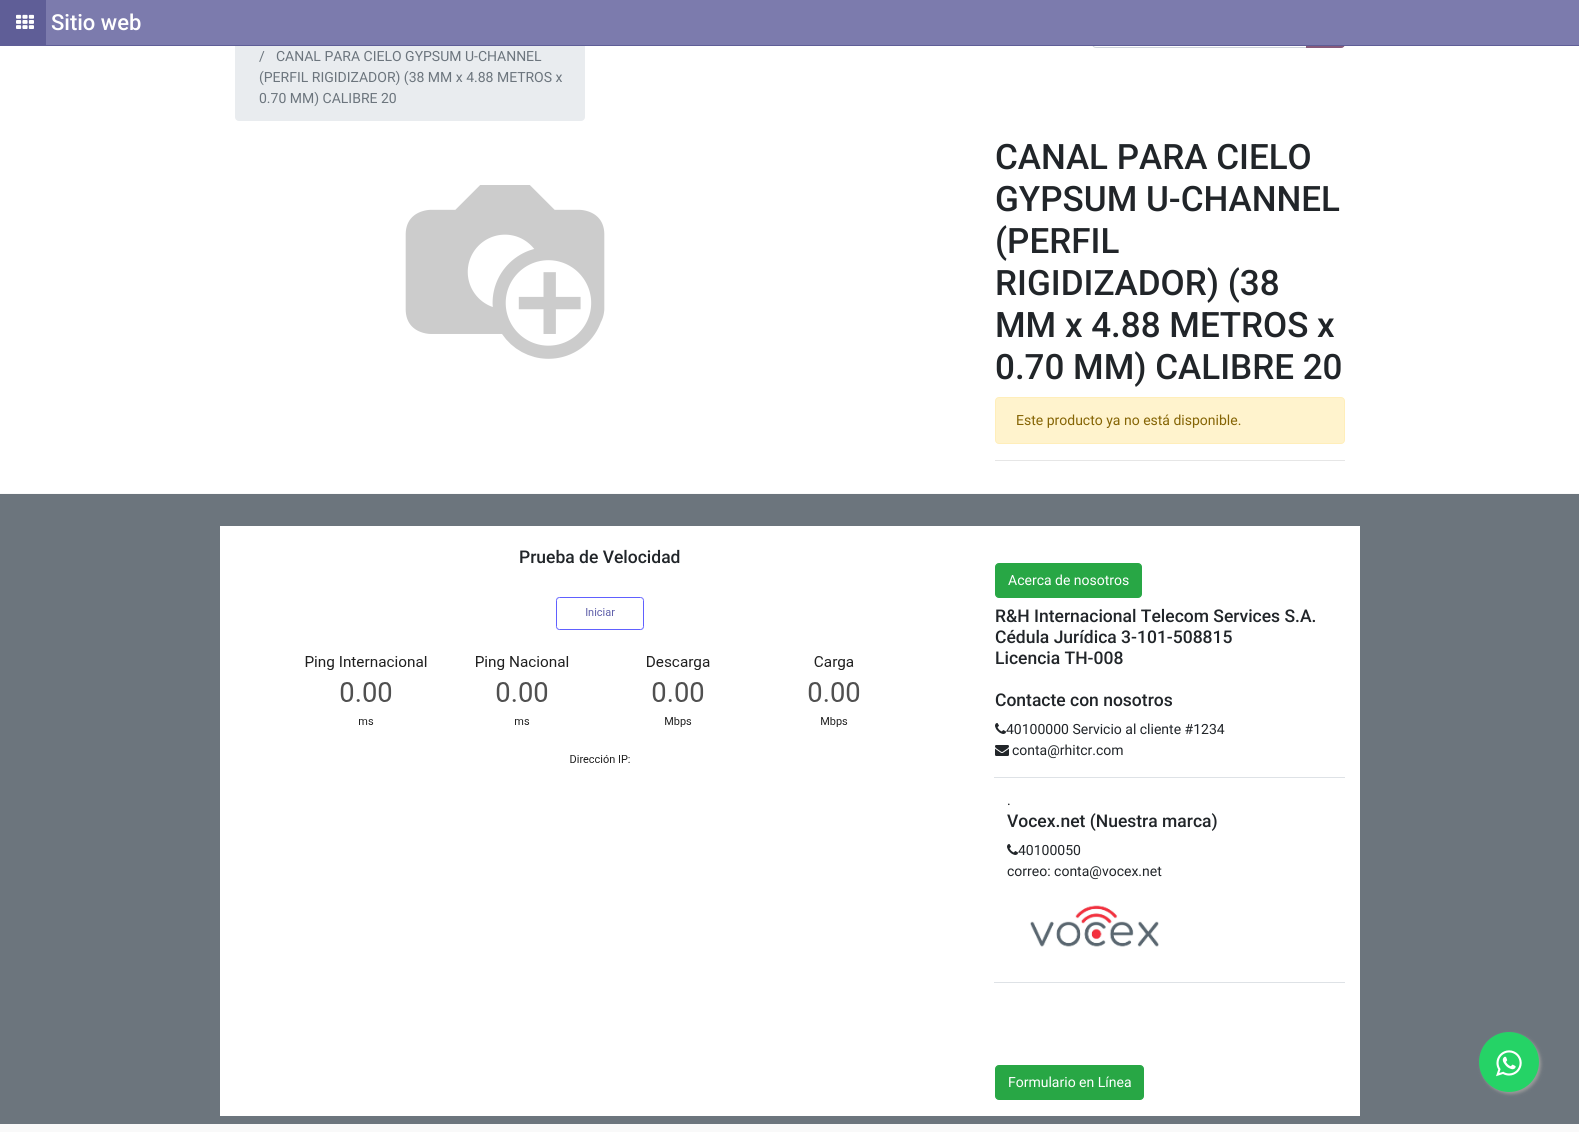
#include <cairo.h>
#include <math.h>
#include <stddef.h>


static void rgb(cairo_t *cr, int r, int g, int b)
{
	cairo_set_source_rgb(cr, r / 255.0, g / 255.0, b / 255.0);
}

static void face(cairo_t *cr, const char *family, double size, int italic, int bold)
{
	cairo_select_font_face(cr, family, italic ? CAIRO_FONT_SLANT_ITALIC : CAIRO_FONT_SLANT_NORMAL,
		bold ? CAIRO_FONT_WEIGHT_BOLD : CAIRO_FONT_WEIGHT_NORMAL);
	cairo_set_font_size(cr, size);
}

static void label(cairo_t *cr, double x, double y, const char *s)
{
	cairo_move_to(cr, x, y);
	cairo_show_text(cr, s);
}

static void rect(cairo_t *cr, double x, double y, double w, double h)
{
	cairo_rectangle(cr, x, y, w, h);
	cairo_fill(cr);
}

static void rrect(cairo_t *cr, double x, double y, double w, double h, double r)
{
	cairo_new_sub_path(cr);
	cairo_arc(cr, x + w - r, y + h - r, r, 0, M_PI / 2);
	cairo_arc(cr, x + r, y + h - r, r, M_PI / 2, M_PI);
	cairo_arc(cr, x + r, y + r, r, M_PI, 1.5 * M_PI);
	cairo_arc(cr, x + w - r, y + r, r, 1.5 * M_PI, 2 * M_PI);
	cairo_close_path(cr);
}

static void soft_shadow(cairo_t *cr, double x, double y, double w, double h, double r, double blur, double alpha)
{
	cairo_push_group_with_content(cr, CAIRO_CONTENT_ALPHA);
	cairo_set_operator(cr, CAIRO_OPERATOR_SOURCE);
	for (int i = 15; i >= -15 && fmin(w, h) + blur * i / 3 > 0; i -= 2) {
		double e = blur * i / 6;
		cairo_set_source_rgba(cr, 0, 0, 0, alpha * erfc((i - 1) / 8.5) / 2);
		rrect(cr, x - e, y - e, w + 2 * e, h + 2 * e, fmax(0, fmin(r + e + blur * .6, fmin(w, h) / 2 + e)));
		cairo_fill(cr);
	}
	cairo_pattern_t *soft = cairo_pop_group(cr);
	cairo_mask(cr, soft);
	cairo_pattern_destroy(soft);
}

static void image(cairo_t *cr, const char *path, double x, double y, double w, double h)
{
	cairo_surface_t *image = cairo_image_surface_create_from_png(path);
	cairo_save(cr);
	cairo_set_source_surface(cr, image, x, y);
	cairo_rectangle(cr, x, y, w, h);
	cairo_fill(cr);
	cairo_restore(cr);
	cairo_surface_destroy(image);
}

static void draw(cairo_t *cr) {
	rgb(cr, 255, 255, 255);
	cairo_paint(cr);
	cairo_new_path(cr);
	cairo_move_to(cr, 1096, 13.5);
	cairo_line_to(cr, 1306.5, 13.5);
	cairo_line_to(cr, 1306.5, 47.5);
	cairo_line_to(cr, 1096, 47.5);
	cairo_curve_to(cr, 1094, 47.5, 1092.5, 46, 1092.5, 44);
	cairo_line_to(cr, 1092.5, 17);
	cairo_curve_to(cr, 1092.5, 15, 1094, 13.5, 1096, 13.5);
	cairo_close_path(cr);
	rgb(cr, 206, 212, 218);
	cairo_set_line_width(cr, 1);
	cairo_stroke(cr);
	rgb(cr, 135, 90, 123);
	cairo_new_path(cr);
	cairo_move_to(cr, 1306.5, 13.5);
	cairo_line_to(cr, 1341, 13.5);
	cairo_curve_to(cr, 1343, 13.5, 1344.5, 15, 1344.5, 17);
	cairo_line_to(cr, 1344.5, 44);
	cairo_curve_to(cr, 1344.5, 46, 1343, 47.5, 1341, 47.5);
	cairo_line_to(cr, 1306.5, 47.5);
	cairo_close_path(cr);
	cairo_fill_preserve(cr);
	cairo_stroke(cr);
	rgb(cr, 233, 236, 239);
	rrect(cr, 235, 13, 350, 108, 4);
	cairo_fill(cr);
	rgb(cr, 124, 123, 173);
	rect(cr, 46, 0, 1533, 45);
	rgb(cr, 95, 94, 151);
	rect(cr, 46, 45, 1533, 1);
	rect(cr, 0, 0, 46, 46);
	image(cr, "image0.png", 16, 14, 18, 15);
	face(cr, "Roboto Medium", 22, 0, 0);
	rgb(cr, 255, 255, 255);
	label(cr, 51, 30, "Sitio web");
	face(cr, "Roboto", 14, 0, 0);
	rgb(cr, 108, 117, 125);
	label(cr, 259, 61, "/");
	label(cr, 276, 61, "CANAL PARA CIELO GYPSUM U-CHANNEL");
	label(cr, 259, 82, "(PERFIL RIGIDIZADOR) (38 MM x 4.88 METROS x");
	label(cr, 259, 103, "0.70 MM) CALIBRE 20");
	image(cr, "image1.png", 405, 185, 200, 174);
	face(cr, "Roboto Medium", 35, 0, 0);
	rgb(cr, 33, 37, 41);
	label(cr, 995, 169, "CANAL PARA CIELO");
	label(cr, 995, 211, "GYPSUM U-CHANNEL");
	label(cr, 995, 253, "(PERFIL");
	label(cr, 995, 295, "RIGIDIZADOR) (38");
	label(cr, 995, 337, "MM x 4.88 METROS x");
	label(cr, 995, 379, "0.70 MM) CALIBRE 20");
	rgb(cr, 255, 243, 205);
	rrect(cr, 995.5, 397.5, 349, 46, 3.5);
	cairo_fill_preserve(cr);
	rgb(cr, 255, 238, 186);
	cairo_stroke(cr);
	face(cr, "Roboto", 14, 0, 0);
	rgb(cr, 133, 100, 4);
	label(cr, 1016, 425, "Este producto ya no está disponible.");
	rgb(cr, 230, 230, 230);
	rect(cr, 995, 460, 350, 1);
	rgb(cr, 249, 249, 249);
	rect(cr, 0, 493, 1579, 639);
	rgb(cr, 108, 117, 125);
	rect(cr, 0, 494, 1579, 630);
	rgb(cr, 255, 255, 255);
	rect(cr, 220, 526, 1140, 590);
	face(cr, "Roboto Medium", 17.5, 0, 0);
	rgb(cr, 33, 37, 41);
	label(cr, 519, 563, "Prueba de Velocidad");
	image(cr, "image2.png", 305, 597, 555, 166);
	rgb(cr, 40, 167, 69);
	rrect(cr, 995.5, 563.5, 146, 34, 3.5);
	cairo_fill_preserve(cr);
	cairo_stroke(cr);
	face(cr, "Roboto", 14, 0, 0);
	rgb(cr, 255, 255, 255);
	label(cr, 1008, 585, "Acerca de nosotros");
	face(cr, "Roboto Medium", 17.5, 0, 0);
	rgb(cr, 33, 37, 41);
	label(cr, 995, 622, "R&H Internacional Telecom Services S.A.");
	label(cr, 995, 643, "Cédula Jurídica 3-101-508815");
	label(cr, 995, 664, "Licencia TH-008");
	label(cr, 995, 706, "Contacte con nosotros");
	image(cr, "image3.png", 995, 723, 11, 11);
	face(cr, "Roboto", 14, 0, 0);
	label(cr, 1006, 734, "40100000 Servicio al cliente #1234");
	image(cr, "image4.png", 995, 745, 14, 11);
	label(cr, 1012, 755, "conta@rhitcr.com");
	rgb(cr, 222, 226, 230);
	rect(cr, 994, 777, 351, 1);
	rgb(cr, 33, 37, 41);
	label(cr, 1007, 805, ".");
	face(cr, "Roboto Medium", 17.5, 0, 0);
	label(cr, 1007, 827, "Vocex.net (Nuestra marca)");
	image(cr, "image3.png", 1007, 844, 11, 11);
	face(cr, "Roboto", 14, 0, 0);
	label(cr, 1018, 855, "40100050");
	label(cr, 1007, 876, "correo: conta@vocex.net");
	image(cr, "image5.png", 1007, 905, 175, 42);
	rgb(cr, 222, 226, 230);
	rect(cr, 994, 982, 351, 1);
	rgb(cr, 40, 167, 69);
	rrect(cr, 995.5, 1065.5, 148, 34, 3.5);
	cairo_fill_preserve(cr);
	cairo_stroke(cr);
	rgb(cr, 255, 255, 255);
	label(cr, 1008, 1087, "Formulario en Línea");
	rgb(cr, 153, 153, 153);
	soft_shadow(cr, 1481, 1034, 60, 60, 30, 1.5, 1);
	rgb(cr, 37, 211, 102);
	cairo_arc(cr, 1509, 1062, 30, 0, 2 * M_PI);
	cairo_fill(cr);
	image(cr, "image6.png", 1496, 1050, 26, 27);
}

int main(void) {
	cairo_surface_t *surface = cairo_image_surface_create(CAIRO_FORMAT_RGB24, 1579, 1132);
	cairo_t *cr = cairo_create(surface);
	cairo_font_options_t *options = cairo_font_options_create();
	cairo_font_options_set_hint_metrics(options, CAIRO_HINT_METRICS_OFF);
	cairo_font_options_set_hint_style(options, CAIRO_HINT_STYLE_NONE);
	cairo_set_font_options(cr, options);
	cairo_set_miter_limit(cr, 4);
	draw(cr);
	cairo_surface_write_to_png(surface, "render.png");
	cairo_font_options_destroy(options);
	cairo_destroy(cr);
	cairo_surface_destroy(surface);
	return 0;
}
